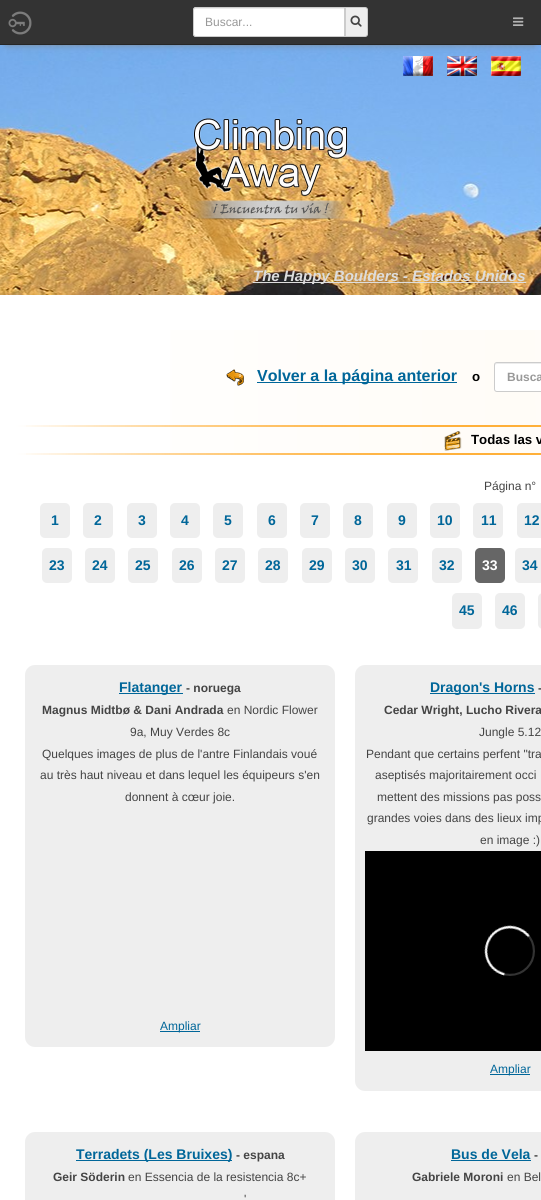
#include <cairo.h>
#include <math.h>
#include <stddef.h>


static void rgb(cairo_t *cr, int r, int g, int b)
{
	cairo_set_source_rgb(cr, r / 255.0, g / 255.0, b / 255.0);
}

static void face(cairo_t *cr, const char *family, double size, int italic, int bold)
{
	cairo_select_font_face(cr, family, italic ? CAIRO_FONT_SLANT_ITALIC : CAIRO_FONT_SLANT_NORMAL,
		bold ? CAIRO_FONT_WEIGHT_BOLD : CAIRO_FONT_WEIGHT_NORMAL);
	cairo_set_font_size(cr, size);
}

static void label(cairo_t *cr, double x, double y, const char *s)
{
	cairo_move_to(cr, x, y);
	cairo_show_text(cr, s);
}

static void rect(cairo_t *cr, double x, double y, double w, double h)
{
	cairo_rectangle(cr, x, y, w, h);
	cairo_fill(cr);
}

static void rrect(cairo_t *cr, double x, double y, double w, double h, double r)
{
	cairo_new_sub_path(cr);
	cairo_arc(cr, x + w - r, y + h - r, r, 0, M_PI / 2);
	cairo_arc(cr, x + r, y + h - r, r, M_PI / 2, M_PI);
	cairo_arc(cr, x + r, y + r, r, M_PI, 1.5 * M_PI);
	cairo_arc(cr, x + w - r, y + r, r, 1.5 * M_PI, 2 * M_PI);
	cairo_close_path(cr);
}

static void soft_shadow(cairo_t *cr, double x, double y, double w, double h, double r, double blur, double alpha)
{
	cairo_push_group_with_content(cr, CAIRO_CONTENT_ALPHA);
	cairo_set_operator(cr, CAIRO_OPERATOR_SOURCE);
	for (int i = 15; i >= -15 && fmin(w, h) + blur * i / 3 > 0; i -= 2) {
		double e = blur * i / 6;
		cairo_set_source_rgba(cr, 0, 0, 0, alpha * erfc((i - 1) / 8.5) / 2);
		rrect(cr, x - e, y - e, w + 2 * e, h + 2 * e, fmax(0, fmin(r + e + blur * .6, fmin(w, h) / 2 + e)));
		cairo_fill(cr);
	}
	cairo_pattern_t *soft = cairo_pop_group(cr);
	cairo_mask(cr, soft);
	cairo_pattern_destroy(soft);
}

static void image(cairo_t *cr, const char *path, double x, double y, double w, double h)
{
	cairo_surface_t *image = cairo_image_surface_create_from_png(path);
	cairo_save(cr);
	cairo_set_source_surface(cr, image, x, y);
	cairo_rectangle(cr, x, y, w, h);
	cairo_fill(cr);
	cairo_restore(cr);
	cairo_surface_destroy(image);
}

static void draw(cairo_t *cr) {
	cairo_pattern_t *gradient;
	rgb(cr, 255, 255, 255);
	cairo_paint(cr);
	image(cr, "image3.png", 0, 45, 541, 250);
	image(cr, "image4.png", 403, 56, 30, 20);
	image(cr, "image5.png", 447, 56, 30, 20);
	image(cr, "image6.png", 491, 56, 30, 20);
	rgb(cr, 128, 128, 128);
	soft_shadow(cr, 7, 13, 527, 31, 0, 4, 1);
	rgb(cr, 51, 51, 51);
	rect(cr, 0, 0, 541, 44);
	rgb(cr, 38, 38, 38);
	rect(cr, 0, 44, 541, 1);
	image(cr, "image0.png", 8, 11, 24, 24);
	rgb(cr, 255, 255, 255);
	cairo_new_path(cr);
	cairo_move_to(cr, 196, 7);
	cairo_line_to(cr, 345, 7);
	cairo_line_to(cr, 345, 37);
	cairo_line_to(cr, 196, 37);
	cairo_curve_to(cr, 194.5, 37, 193, 35.5, 193, 34);
	cairo_line_to(cr, 193, 10);
	cairo_curve_to(cr, 193, 8.5, 194.5, 7, 196, 7);
	cairo_close_path(cr);
	cairo_fill(cr);
	rgb(cr, 236, 236, 236);
	cairo_new_path(cr);
	cairo_move_to(cr, 196, 9);
	cairo_line_to(cr, 344, 9);
	cairo_line_to(cr, 344, 8);
	cairo_line_to(cr, 195, 8);
	cairo_curve_to(cr, 194, 9, 194, 10, 194, 11);
	cairo_curve_to(cr, 194, 10, 194, 9, 196, 9);
	cairo_close_path(cr);
	cairo_fill(cr);
	cairo_new_path(cr);
	cairo_move_to(cr, 196, 7.5);
	cairo_line_to(cr, 344.5, 7.5);
	cairo_line_to(cr, 344.5, 36.5);
	cairo_line_to(cr, 196, 36.5);
	cairo_curve_to(cr, 194.5, 36.5, 193.5, 35.5, 193.5, 34);
	cairo_line_to(cr, 193.5, 10);
	cairo_curve_to(cr, 193.5, 8.5, 194.5, 7.5, 196, 7.5);
	cairo_close_path(cr);
	rgb(cr, 204, 204, 204);
	cairo_set_line_width(cr, 1);
	cairo_stroke(cr);
	face(cr, "Liberation Sans", 12, 0, 0);
	rgb(cr, 153, 153, 153);
	label(cr, 205, 26, "Buscar...");
	rgb(cr, 238, 238, 238);
	cairo_new_path(cr);
	cairo_move_to(cr, 345.5, 7.5);
	cairo_line_to(cr, 365, 7.5);
	cairo_curve_to(cr, 366.5, 7.5, 367.5, 8.5, 367.5, 10);
	cairo_line_to(cr, 367.5, 34);
	cairo_curve_to(cr, 367.5, 35.5, 366.5, 36.5, 365, 36.5);
	cairo_line_to(cr, 345.5, 36.5);
	cairo_close_path(cr);
	cairo_fill_preserve(cr);
	rgb(cr, 204, 204, 204);
	cairo_stroke(cr);
	image(cr, "image1.png", 350, 15, 12, 12);
	image(cr, "image2.png", 513, 17, 11, 9);
	image(cr, "image7.png", 191, 118, 160, 102);
	rgb(cr, 221, 221, 221);
	rect(cr, 253, 282, 273, 1);
	face(cr, "Liberation Sans", 15, 1, 1);
	label(cr, 253, 281, "The Happy Boulders - Estados Unidos");
	gradient = cairo_pattern_create_linear(15, 378, 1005, 377);
	cairo_pattern_add_color_stop_rgba(gradient, 0, 1, 1, 1, 1);
	cairo_pattern_add_color_stop_rgba(gradient, 0.5, 1, 0.988, 0.969, 1);
	cairo_pattern_add_color_stop_rgba(gradient, 1, 1, 1, 1, 1);
	cairo_set_source(cr, gradient);
	cairo_pattern_destroy(gradient);
	rect(cr, 170, 330, 371, 95);
	image(cr, "image8.png", 226, 369, 18, 17);
	rgb(cr, 0, 102, 153);
	rect(cr, 257, 382, 200, 1);
	face(cr, "Liberation Sans", 16, 0, 1);
	label(cr, 257, 381, "Volver a la página anterior");
	face(cr, "Liberation Sans", 13.25, 0, 1);
	rgb(cr, 0, 0, 0);
	label(cr, 472, 381, "o");
	rgb(cr, 255, 255, 255);
	cairo_new_path(cr);
	cairo_move_to(cr, 497, 362);
	cairo_line_to(cr, 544, 362);
	cairo_line_to(cr, 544, 392);
	cairo_line_to(cr, 497, 392);
	cairo_curve_to(cr, 495.5, 392, 494, 390.5, 494, 389);
	cairo_line_to(cr, 494, 365);
	cairo_curve_to(cr, 494, 363.5, 495.5, 362, 497, 362);
	cairo_close_path(cr);
	cairo_fill(cr);
	rgb(cr, 236, 236, 236);
	cairo_new_path(cr);
	cairo_move_to(cr, 497, 364);
	cairo_line_to(cr, 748, 364);
	cairo_line_to(cr, 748, 363);
	cairo_line_to(cr, 497, 363);
	cairo_curve_to(cr, 495, 363, 495, 365, 495, 366);
	cairo_curve_to(cr, 495, 365, 496, 364, 497, 364);
	cairo_close_path(cr);
	cairo_fill(cr);
	cairo_new_path(cr);
	cairo_move_to(cr, 497, 362.5);
	cairo_line_to(cr, 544.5, 362.5);
	cairo_line_to(cr, 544.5, 391.5);
	cairo_line_to(cr, 497, 391.5);
	cairo_curve_to(cr, 495.5, 391.5, 494.5, 390.5, 494.5, 389);
	cairo_line_to(cr, 494.5, 365);
	cairo_curve_to(cr, 494.5, 363.5, 495.5, 362.5, 497, 362.5);
	cairo_close_path(cr);
	rgb(cr, 204, 204, 204);
	cairo_stroke(cr);
	face(cr, "Liberation Sans", 12, 0, 1);
	rgb(cr, 153, 153, 153);
	label(cr, 507, 381, "Busca");
	gradient = cairo_pattern_create_linear(15, 426, 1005, 426);
	cairo_pattern_add_color_stop_rgba(gradient, 0, 1, 1, 1, 1);
	cairo_pattern_add_color_stop_rgba(gradient, 0.5, 1, 0.69, 0.224, 1);
	cairo_pattern_add_color_stop_rgba(gradient, 1, 1, 1, 1, 1);
	cairo_set_source(cr, gradient);
	cairo_pattern_destroy(gradient);
	rect(cr, 15, 425, 526, 2);
	gradient = cairo_pattern_create_linear(15, 426, 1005, 426);
	cairo_pattern_add_color_stop_rgba(gradient, 0, 1, 0.69, 0.224, 0);
	cairo_pattern_add_color_stop_rgba(gradient, 0.5, 1, 0.69, 0.224, 1);
	cairo_pattern_add_color_stop_rgba(gradient, 1, 1, 0.69, 0.224, 0);
	cairo_set_source(cr, gradient);
	cairo_pattern_destroy(gradient);
	rect(cr, 26, 425, 515, 2);
	gradient = cairo_pattern_create_linear(15, 440, 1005, 440);
	cairo_pattern_add_color_stop_rgba(gradient, 0, 1, 1, 1, 1);
	cairo_pattern_add_color_stop_rgba(gradient, 0.5, 1, 0.988, 0.969, 1);
	cairo_pattern_add_color_stop_rgba(gradient, 1, 1, 1, 1, 1);
	cairo_set_source(cr, gradient);
	cairo_pattern_destroy(gradient);
	rect(cr, 170, 427, 371, 26);
	image(cr, "image9.png", 444, 431, 18, 20);
	face(cr, "Liberation Sans", 13.25, 0, 1);
	rgb(cr, 0, 0, 0);
	label(cr, 471, 444, "Todas las v");
	gradient = cairo_pattern_create_linear(15, 454, 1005, 454);
	cairo_pattern_add_color_stop_rgba(gradient, 0, 1, 1, 1, 1);
	cairo_pattern_add_color_stop_rgba(gradient, 0.5, 1, 0.69, 0.224, 1);
	cairo_pattern_add_color_stop_rgba(gradient, 1, 1, 1, 1, 1);
	cairo_set_source(cr, gradient);
	cairo_pattern_destroy(gradient);
	rect(cr, 15, 453, 526, 2);
	gradient = cairo_pattern_create_linear(15, 454, 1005, 454);
	cairo_pattern_add_color_stop_rgba(gradient, 0, 1, 0.69, 0.224, 0);
	cairo_pattern_add_color_stop_rgba(gradient, 0.5, 1, 0.69, 0.224, 1);
	cairo_pattern_add_color_stop_rgba(gradient, 1, 1, 0.69, 0.224, 0);
	cairo_set_source(cr, gradient);
	cairo_pattern_destroy(gradient);
	rect(cr, 26, 453, 515, 2);
	face(cr, "Liberation Sans", 12, 0, 0);
	rgb(cr, 68, 68, 68);
	label(cr, 484, 490, "Página n°");
	rgb(cr, 238, 238, 238);
	rrect(cr, 40, 503, 30, 35, 5);
	cairo_fill(cr);
	face(cr, "Liberation Sans", 14, 0, 1);
	rgb(cr, 0, 102, 153);
	label(cr, 51, 525, "1");
	rgb(cr, 238, 238, 238);
	rrect(cr, 83, 503, 30, 35, 5);
	cairo_fill(cr);
	rgb(cr, 0, 102, 153);
	label(cr, 94, 525, "2");
	rgb(cr, 238, 238, 238);
	rrect(cr, 127, 503, 30, 35, 5);
	cairo_fill(cr);
	rgb(cr, 0, 102, 153);
	label(cr, 138, 525, "3");
	rgb(cr, 238, 238, 238);
	rrect(cr, 170, 503, 30, 35, 5);
	cairo_fill(cr);
	rgb(cr, 0, 102, 153);
	label(cr, 181, 525, "4");
	rgb(cr, 238, 238, 238);
	rrect(cr, 213, 503, 30, 35, 5);
	cairo_fill(cr);
	rgb(cr, 0, 102, 153);
	label(cr, 224, 525, "5");
	rgb(cr, 238, 238, 238);
	rrect(cr, 257, 503, 30, 35, 5);
	cairo_fill(cr);
	rgb(cr, 0, 102, 153);
	label(cr, 268, 525, "6");
	rgb(cr, 238, 238, 238);
	rrect(cr, 300, 503, 30, 35, 5);
	cairo_fill(cr);
	rgb(cr, 0, 102, 153);
	label(cr, 311, 525, "7");
	rgb(cr, 238, 238, 238);
	rrect(cr, 343, 503, 30, 35, 5);
	cairo_fill(cr);
	rgb(cr, 0, 102, 153);
	label(cr, 354, 525, "8");
	rgb(cr, 238, 238, 238);
	rrect(cr, 387, 503, 30, 35, 5);
	cairo_fill(cr);
	rgb(cr, 0, 102, 153);
	label(cr, 398, 525, "9");
	rgb(cr, 238, 238, 238);
	rrect(cr, 430, 503, 30, 35, 5);
	cairo_fill(cr);
	rgb(cr, 0, 102, 153);
	label(cr, 437, 525, "10");
	rgb(cr, 238, 238, 238);
	rrect(cr, 473, 503, 30, 35, 5);
	cairo_fill(cr);
	rgb(cr, 0, 102, 153);
	label(cr, 481, 525, "11");
	rgb(cr, 238, 238, 238);
	rrect(cr, 517, 503, 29, 35, 5);
	cairo_fill(cr);
	rgb(cr, 0, 102, 153);
	label(cr, 524, 525, "12");
	rgb(cr, 238, 238, 238);
	rrect(cr, 42, 548, 30, 35, 5);
	cairo_fill(cr);
	rgb(cr, 0, 102, 153);
	label(cr, 49, 570, "23");
	rgb(cr, 238, 238, 238);
	rrect(cr, 85, 548, 30, 35, 5);
	cairo_fill(cr);
	rgb(cr, 0, 102, 153);
	label(cr, 92, 570, "24");
	rgb(cr, 238, 238, 238);
	rrect(cr, 128, 548, 30, 35, 5);
	cairo_fill(cr);
	rgb(cr, 0, 102, 153);
	label(cr, 135, 570, "25");
	rgb(cr, 238, 238, 238);
	rrect(cr, 172, 548, 30, 35, 5);
	cairo_fill(cr);
	rgb(cr, 0, 102, 153);
	label(cr, 179, 570, "26");
	rgb(cr, 238, 238, 238);
	rrect(cr, 215, 548, 30, 35, 5);
	cairo_fill(cr);
	rgb(cr, 0, 102, 153);
	label(cr, 222, 570, "27");
	rgb(cr, 238, 238, 238);
	rrect(cr, 258, 548, 30, 35, 5);
	cairo_fill(cr);
	rgb(cr, 0, 102, 153);
	label(cr, 265, 570, "28");
	rgb(cr, 238, 238, 238);
	rrect(cr, 302, 548, 30, 35, 5);
	cairo_fill(cr);
	rgb(cr, 0, 102, 153);
	label(cr, 309, 570, "29");
	rgb(cr, 238, 238, 238);
	rrect(cr, 345, 548, 30, 35, 5);
	cairo_fill(cr);
	rgb(cr, 0, 102, 153);
	label(cr, 352, 570, "30");
	rgb(cr, 238, 238, 238);
	rrect(cr, 388, 548, 30, 35, 5);
	cairo_fill(cr);
	rgb(cr, 0, 102, 153);
	label(cr, 396, 570, "31");
	rgb(cr, 238, 238, 238);
	rrect(cr, 432, 548, 30, 35, 5);
	cairo_fill(cr);
	rgb(cr, 0, 102, 153);
	label(cr, 439, 570, "32");
	rgb(cr, 102, 102, 102);
	rrect(cr, 475, 548, 30, 35, 5);
	cairo_fill(cr);
	rgb(cr, 255, 255, 255);
	label(cr, 482, 570, "33");
	rgb(cr, 238, 238, 238);
	rrect(cr, 515, 548, 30, 35, 5);
	cairo_fill(cr);
	rgb(cr, 0, 102, 153);
	label(cr, 522, 570, "34");
	rgb(cr, 238, 238, 238);
	rrect(cr, 452, 593, 30, 36, 5);
	cairo_fill(cr);
	rgb(cr, 0, 102, 153);
	label(cr, 459, 615, "45");
	rgb(cr, 238, 238, 238);
	rrect(cr, 495, 593, 30, 36, 5);
	cairo_fill(cr);
	rgb(cr, 0, 102, 153);
	label(cr, 502, 615, "46");
	rgb(cr, 238, 238, 238);
	rrect(cr, 538, 593, 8, 36, 5);
	cairo_fill(cr);
	rrect(cr, 25, 665, 310, 382, 10);
	cairo_fill(cr);
	rgb(cr, 0, 102, 153);
	rect(cr, 119, 693, 64, 1);
	label(cr, 119, 692, "Flatanger");
	face(cr, "Liberation Sans", 12, 0, 1);
	rgb(cr, 68, 68, 68);
	label(cr, 186, 692, "- noruega");
	label(cr, 42, 714, "Magnus Midtbø & Dani Andrada");
	face(cr, "Liberation Sans", 12, 0, 0);
	label(cr, 227, 714, "en Nordic Flower");
	label(cr, 130, 736, "9a, Muy Verdes 8c");
	label(cr, 42, 758, "Quelques images de plus de l'antre Finlandais voué");
	label(cr, 40, 779, "au très haut niveau et dans lequel les équipeurs s'en");
	label(cr, 125, 801, "donnent à cœur joie.");
	rgb(cr, 0, 102, 153);
	rect(cr, 160, 1031, 40, 1);
	label(cr, 160, 1030, "Ampliar");
	rgb(cr, 238, 238, 238);
	rrect(cr, 355, 665, 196, 426, 10);
	cairo_fill(cr);
	rgb(cr, 0, 102, 153);
	rect(cr, 430, 693, 105, 1);
	face(cr, "Liberation Sans", 14, 0, 1);
	label(cr, 430, 692, "Dragon's Horns");
	face(cr, "Liberation Sans", 12, 0, 1);
	rgb(cr, 68, 68, 68);
	label(cr, 538, 692, "-");
	label(cr, 384, 714, "Cedar Wright, Lucho Rivera");
	face(cr, "Liberation Sans", 12, 0, 0);
	label(cr, 479, 736, "Jungle 5.12");
	label(cr, 366, 758, "Pendant que certains perfent \"tra");
	label(cr, 375, 779, "aseptisés majoritairement occi");
	label(cr, 377, 801, "mettent des missions pas poss");
	label(cr, 367, 822, "grandes voies dans des lieux imp");
	label(cr, 480, 844, "en image :)");
	image(cr, "image10.png", 365, 851, 176, 200);
	rgb(cr, 0, 102, 153);
	rect(cr, 490, 1074, 40, 1);
	label(cr, 490, 1073, "Ampliar");
	rgb(cr, 238, 238, 238);
	rrect(cr, 25, 1132, 310, 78, 10);
	cairo_fill(cr);
	rgb(cr, 0, 102, 153);
	rect(cr, 76, 1160, 156, 1);
	face(cr, "Liberation Sans", 14, 0, 1);
	label(cr, 76, 1159, "Terradets (Les Bruixes)");
	face(cr, "Liberation Sans", 12, 0, 1);
	rgb(cr, 68, 68, 68);
	label(cr, 236, 1159, "- espana");
	label(cr, 53, 1181, "Geir Söderin");
	face(cr, "Liberation Sans", 12, 0, 0);
	label(cr, 128, 1181, "en Essencia de la resistencia 8c+");
	label(cr, 244, 1203, "'");
	rgb(cr, 238, 238, 238);
	rrect(cr, 355, 1132, 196, 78, 10);
	cairo_fill(cr);
	face(cr, "Liberation Sans", 14, 0, 1);
	rgb(cr, 0, 102, 153);
	label(cr, 451, 1159, "Bus de Vela");
	rect(cr, 451, 1160, 80, 1);
	face(cr, "Liberation Sans", 12, 0, 1);
	rgb(cr, 68, 68, 68);
	label(cr, 534, 1159, "-");
	label(cr, 412, 1181, "Gabriele Moroni");
	face(cr, "Liberation Sans", 12, 0, 0);
	label(cr, 507, 1181, "en Bel");
}

int main(void) {
	cairo_surface_t *surface = cairo_image_surface_create(CAIRO_FORMAT_RGB24, 541, 1200);
	cairo_t *cr = cairo_create(surface);
	cairo_font_options_t *options = cairo_font_options_create();
	cairo_font_options_set_hint_metrics(options, CAIRO_HINT_METRICS_OFF);
	cairo_font_options_set_hint_style(options, CAIRO_HINT_STYLE_NONE);
	cairo_set_font_options(cr, options);
	cairo_set_miter_limit(cr, 4);
	draw(cr);
	cairo_surface_write_to_png(surface, "render.png");
	cairo_font_options_destroy(options);
	cairo_destroy(cr);
	cairo_surface_destroy(surface);
	return 0;
}
